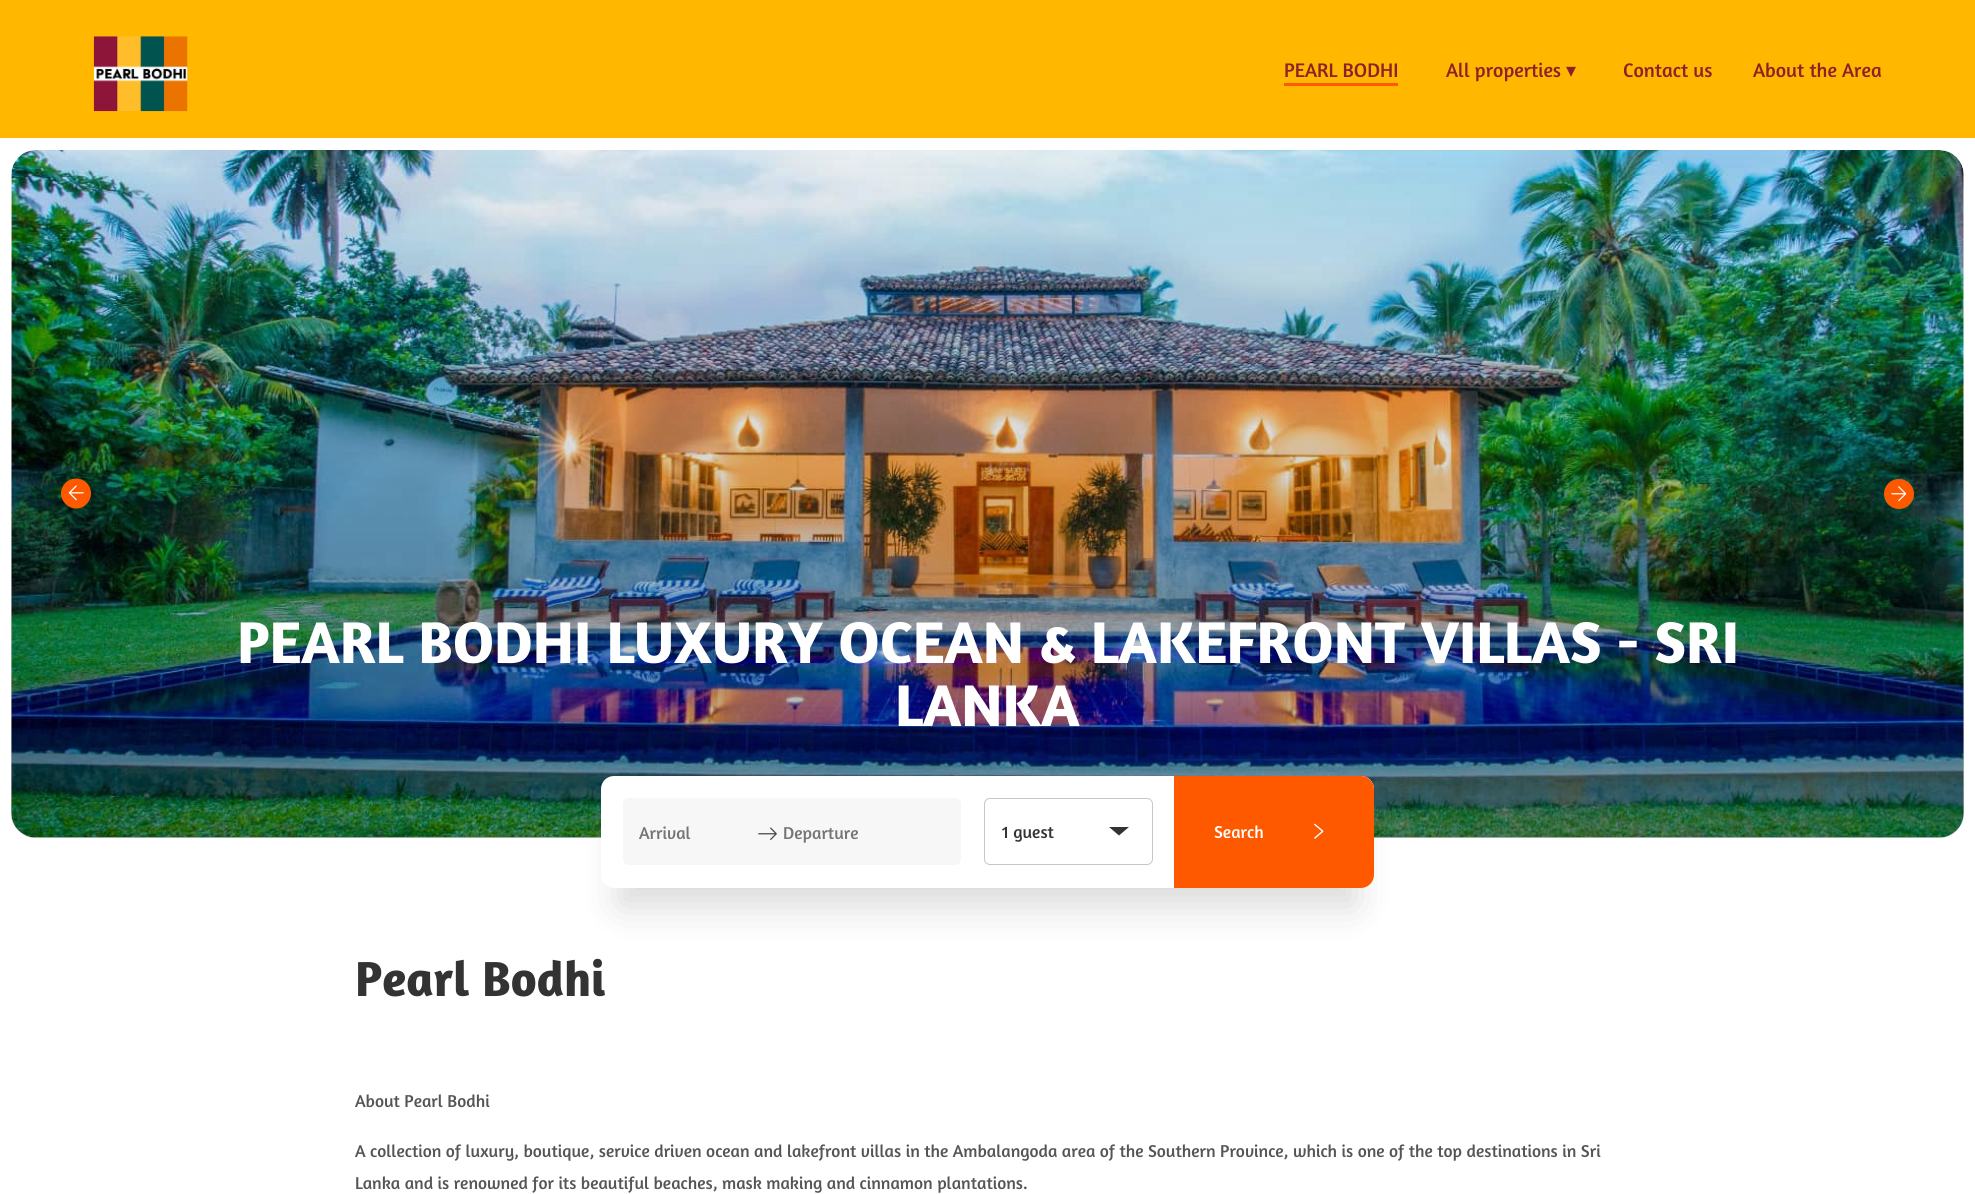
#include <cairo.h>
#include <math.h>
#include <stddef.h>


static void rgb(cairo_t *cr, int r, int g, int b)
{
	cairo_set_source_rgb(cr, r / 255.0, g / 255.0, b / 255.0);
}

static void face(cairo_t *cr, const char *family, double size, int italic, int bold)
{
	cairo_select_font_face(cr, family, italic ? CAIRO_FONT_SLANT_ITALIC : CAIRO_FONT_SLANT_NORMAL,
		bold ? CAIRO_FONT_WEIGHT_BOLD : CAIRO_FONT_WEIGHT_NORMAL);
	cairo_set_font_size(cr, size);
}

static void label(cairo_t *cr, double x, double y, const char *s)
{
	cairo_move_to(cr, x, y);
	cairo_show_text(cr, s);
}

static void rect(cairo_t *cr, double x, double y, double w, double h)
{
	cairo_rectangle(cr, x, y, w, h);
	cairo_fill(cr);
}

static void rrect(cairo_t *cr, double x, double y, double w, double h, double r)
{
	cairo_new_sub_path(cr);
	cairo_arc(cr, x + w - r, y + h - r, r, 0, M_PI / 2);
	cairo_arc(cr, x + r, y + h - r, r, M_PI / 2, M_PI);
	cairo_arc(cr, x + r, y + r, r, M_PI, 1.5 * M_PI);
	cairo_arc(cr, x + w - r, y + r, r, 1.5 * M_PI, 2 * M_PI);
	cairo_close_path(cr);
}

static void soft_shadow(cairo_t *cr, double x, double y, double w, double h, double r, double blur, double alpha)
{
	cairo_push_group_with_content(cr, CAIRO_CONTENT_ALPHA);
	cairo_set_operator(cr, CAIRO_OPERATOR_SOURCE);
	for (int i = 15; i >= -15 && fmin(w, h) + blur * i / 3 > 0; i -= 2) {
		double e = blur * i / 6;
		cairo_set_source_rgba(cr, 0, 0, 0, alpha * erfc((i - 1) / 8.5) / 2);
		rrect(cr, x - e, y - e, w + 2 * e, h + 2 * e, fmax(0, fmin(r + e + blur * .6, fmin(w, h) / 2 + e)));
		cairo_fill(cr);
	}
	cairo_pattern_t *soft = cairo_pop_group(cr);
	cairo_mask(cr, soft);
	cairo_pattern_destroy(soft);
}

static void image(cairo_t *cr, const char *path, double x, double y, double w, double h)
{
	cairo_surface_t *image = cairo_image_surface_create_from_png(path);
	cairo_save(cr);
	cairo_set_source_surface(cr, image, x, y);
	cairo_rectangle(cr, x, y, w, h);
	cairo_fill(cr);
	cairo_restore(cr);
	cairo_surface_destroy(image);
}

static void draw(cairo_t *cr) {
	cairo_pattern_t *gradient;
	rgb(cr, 255, 255, 255);
	cairo_paint(cr);
	rgb(cr, 255, 183, 0);
	rect(cr, 0, 0, 1975, 138);
	image(cr, "image0.png", 93, 36, 95, 76);
	face(cr, "Amaranth", 20, 0, 0);
	rgb(cr, 141, 32, 41);
	label(cr, 1284, 77, "PEARL BODHI");
	rgb(cr, 255, 89, 0);
	rect(cr, 1284, 83, 114, 3);
	rgb(cr, 141, 32, 41);
	label(cr, 1446, 77, "All properties");
	face(cr, "DejaVu Sans", 20, 0, 0);
	label(cr, 1566, 77, "▾");
	face(cr, "Amaranth", 20, 0, 0);
	label(cr, 1623, 77, "Contact us");
	label(cr, 1753, 77, "About the Area");
	image(cr, "image1.png", 11, 150, 1953, 688);
	gradient = cairo_pattern_create_linear(988, 150, 988, 838);
	cairo_pattern_add_color_stop_rgba(gradient, 0, 0, 0, 0, 0);
	cairo_pattern_add_color_stop_rgba(gradient, 1, 0, 0, 0, 0.3);
	cairo_set_source(cr, gradient);
	cairo_pattern_destroy(gradient);
	rrect(cr, 11, 150, 1953, 688, 25);
	cairo_fill(cr);
	rgb(cr, 255, 89, 0);
	cairo_new_path(cr);
	cairo_move_to(cr, 76, 508.5);
	cairo_curve_to(cr, 68, 508.5, 61, 501.5, 61, 493.5);
	cairo_curve_to(cr, 61, 485, 68, 478.5, 76, 478.5);
	cairo_curve_to(cr, 84.5, 478.5, 91, 485, 91, 493.5);
	cairo_curve_to(cr, 91, 501.5, 84.5, 508.5, 76, 508.5);
	cairo_close_path(cr);
	cairo_fill(cr);
	image(cr, "image2.png", 68, 485, 16, 16);
	cairo_arc(cr, 1899, 494, 15, 0, 2 * M_PI);
	cairo_fill(cr);
	image(cr, "image3.png", 1891, 486, 16, 16);
	face(cr, "Amaranth", 59.85, 0, 1);
	rgb(cr, 255, 255, 255);
	label(cr, 237, 663, "PEARL BODHI LUXURY OCEAN & LAKEFRONT VILLAS - SRI");
	label(cr, 895, 726, "LANKA");
	rgb(cr, 0, 0, 0);
	soft_shadow(cr, 620, 806, 735, 100, 0, 19, 0.15);
	rgb(cr, 255, 255, 255);
	rrect(cr, 601, 776, 773, 112, 13);
	cairo_fill(cr);
	rgb(cr, 247, 247, 247);
	rrect(cr, 623, 798, 338, 67, 6);
	cairo_fill(cr);
	face(cr, "Amaranth", 17.5, 0, 0);
	rgb(cr, 117, 117, 117);
	label(cr, 639, 839, "Arrival");
	image(cr, "image4.png", 758, 827, 19, 13);
	label(cr, 783, 839, "Departure");
	rrect(cr, 984.5, 798.5, 168, 66, 5.5);
	rgb(cr, 198, 198, 198);
	cairo_set_line_width(cr, 1);
	cairo_stroke(cr);
	rgb(cr, 51, 51, 51);
	label(cr, 1002, 838, "1 guest");
	cairo_new_path(cr);
	cairo_move_to(cr, 1129, 827);
	cairo_line_to(cr, 1119, 835.5);
	cairo_line_to(cr, 1109, 827);
	cairo_close_path(cr);
	cairo_fill(cr);
	rgb(cr, 255, 89, 0);
	cairo_new_path(cr);
	cairo_move_to(cr, 1174, 776);
	cairo_line_to(cr, 1361, 776);
	cairo_curve_to(cr, 1368, 776, 1374, 782, 1374, 789);
	cairo_line_to(cr, 1374, 875);
	cairo_curve_to(cr, 1374, 882, 1368, 888, 1361, 888);
	cairo_line_to(cr, 1174, 888);
	cairo_close_path(cr);
	cairo_fill(cr);
	rgb(cr, 255, 255, 255);
	label(cr, 1214, 838, "Search");
	image(cr, "image5.png", 1314, 823, 10, 16);
	face(cr, "Amaranth", 50, 0, 1);
	rgb(cr, 51, 51, 51);
	label(cr, 355, 996, "Pearl Bodhi");
	face(cr, "Amaranth", 17.5, 0, 0);
	rgb(cr, 85, 85, 85);
	label(cr, 355, 1107, "About Pearl Bodhi");
	label(cr, 355, 1157, "A collection of luxury, boutique, service driven ocean and lakefront villas in the Ambalangoda area of the Southern Province, which is one of the top destinations in Sri");
	label(cr, 355, 1189, "Lanka and is renowned for its beautiful beaches, mask making and cinnamon plantations.");
}

int main(void) {
	cairo_surface_t *surface = cairo_image_surface_create(CAIRO_FORMAT_RGB24, 1975, 1194);
	cairo_t *cr = cairo_create(surface);
	cairo_font_options_t *options = cairo_font_options_create();
	cairo_font_options_set_hint_metrics(options, CAIRO_HINT_METRICS_OFF);
	cairo_font_options_set_hint_style(options, CAIRO_HINT_STYLE_NONE);
	cairo_set_font_options(cr, options);
	cairo_set_miter_limit(cr, 4);
	draw(cr);
	cairo_surface_write_to_png(surface, "render.png");
	cairo_font_options_destroy(options);
	cairo_destroy(cr);
	cairo_surface_destroy(surface);
	return 0;
}
